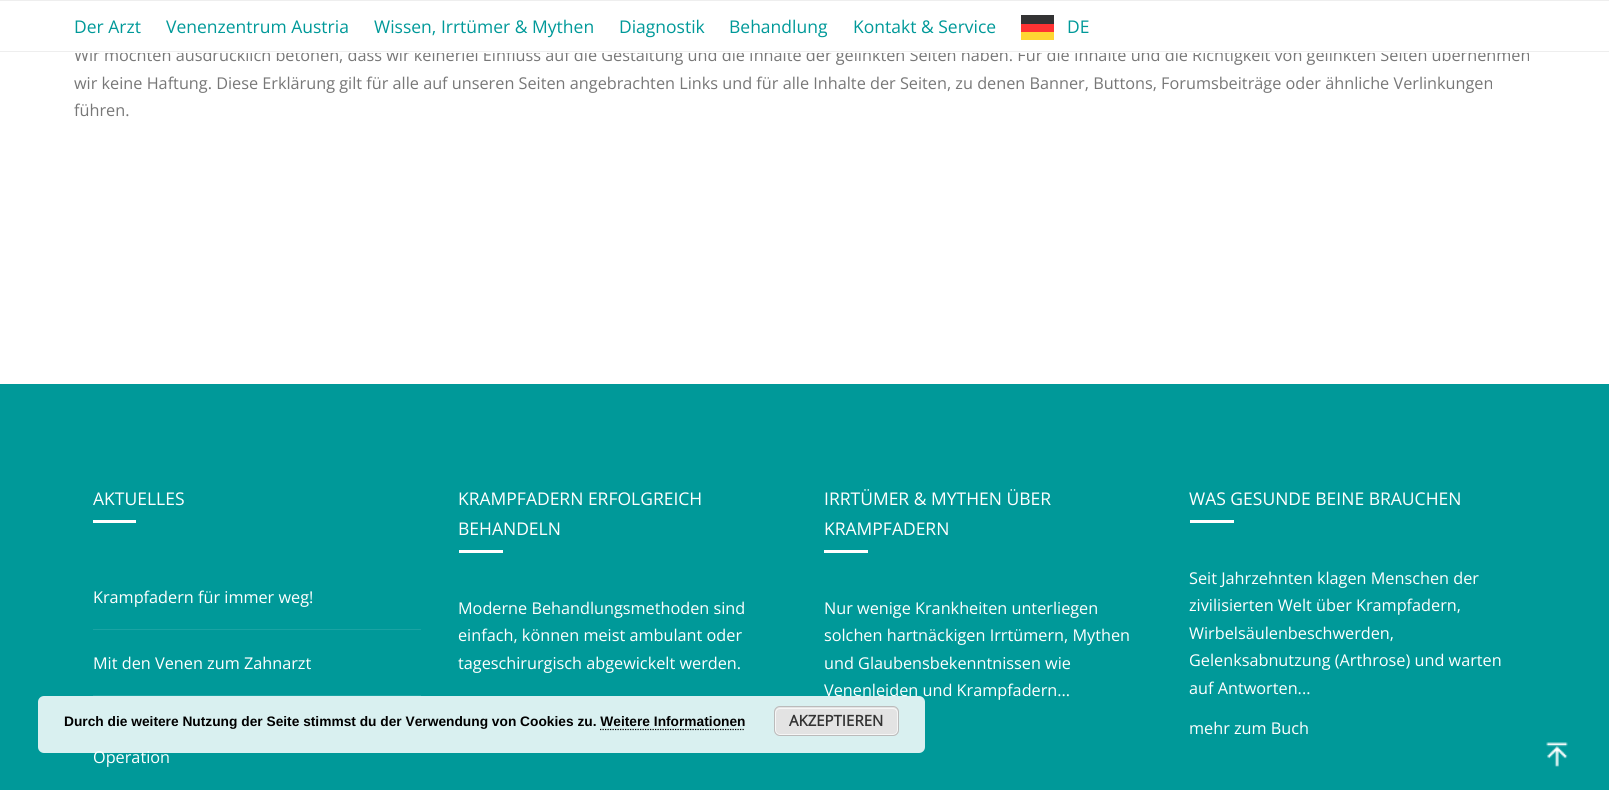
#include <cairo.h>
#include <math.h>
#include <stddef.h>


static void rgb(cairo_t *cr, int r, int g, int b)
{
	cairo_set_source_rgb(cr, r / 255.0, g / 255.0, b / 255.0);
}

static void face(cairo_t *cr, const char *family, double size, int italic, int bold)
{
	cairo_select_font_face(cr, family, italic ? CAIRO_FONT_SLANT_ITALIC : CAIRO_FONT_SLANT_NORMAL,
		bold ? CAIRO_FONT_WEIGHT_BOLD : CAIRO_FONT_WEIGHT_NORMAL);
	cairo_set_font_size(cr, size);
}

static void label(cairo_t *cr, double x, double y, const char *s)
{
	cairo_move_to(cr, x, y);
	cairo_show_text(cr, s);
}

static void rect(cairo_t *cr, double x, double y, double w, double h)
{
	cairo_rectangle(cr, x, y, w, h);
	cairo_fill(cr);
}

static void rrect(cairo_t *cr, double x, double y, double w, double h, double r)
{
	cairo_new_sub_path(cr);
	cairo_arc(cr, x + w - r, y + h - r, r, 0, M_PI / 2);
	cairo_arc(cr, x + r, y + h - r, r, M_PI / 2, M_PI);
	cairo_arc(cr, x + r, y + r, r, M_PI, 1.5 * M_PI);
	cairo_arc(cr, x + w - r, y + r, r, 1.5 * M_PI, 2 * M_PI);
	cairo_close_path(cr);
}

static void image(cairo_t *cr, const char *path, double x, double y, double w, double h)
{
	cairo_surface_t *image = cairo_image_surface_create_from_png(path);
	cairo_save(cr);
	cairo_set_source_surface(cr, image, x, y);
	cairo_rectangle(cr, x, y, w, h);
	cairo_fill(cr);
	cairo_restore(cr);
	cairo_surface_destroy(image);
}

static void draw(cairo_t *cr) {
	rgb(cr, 255, 255, 255);
	cairo_paint(cr);
	face(cr, "Open Sans", 16.25, 0, 0);
	rgb(cr, 119, 119, 119);
	label(cr, 74, 61, "Wir möchten ausdrücklich betonen, dass wir keinerlei Einfluss auf die Gestaltung und die Inhalte der gelinkten Seiten haben. Für die Inhalte und die Richtigkeit von gelinkten Seiten übernehmen");
	rgb(cr, 255, 255, 255);
	rect(cr, 74, 48, 1454, 5);
	rgb(cr, 238, 238, 238);
	rect(cr, 0, 0, 1609, 1);
	rect(cr, 0, 51, 1609, 1);
	face(cr, "Open Sans", 17.5, 0, 0);
	rgb(cr, 0, 153, 153);
	label(cr, 74, 33, "Der Arzt");
	label(cr, 166, 33, "Venenzentrum Austria");
	label(cr, 374, 33, "Wissen, Irrtümer & Mythen");
	label(cr, 619, 33, "Diagnostik");
	label(cr, 729, 33, "Behandlung");
	label(cr, 853, 33, "Kontakt & Service");
	rgb(cr, 255, 214, 51);
	rect(cr, 1021, 32, 33, 8);
	rgb(cr, 51, 51, 52);
	rect(cr, 1021, 15, 33, 9);
	rgb(cr, 255, 51, 51);
	rect(cr, 1021, 24, 33, 8);
	rgb(cr, 0, 153, 153);
	label(cr, 1067, 33, "DE");
	face(cr, "Open Sans", 16.25, 0, 0);
	rgb(cr, 119, 119, 119);
	label(cr, 74, 89, "wir keine Haftung. Diese Erklärung gilt für alle auf unseren Seiten angebrachten Links und für alle Inhalte der Seiten, zu denen Banner, Buttons, Forumsbeiträge oder ähnliche Verlinkungen");
	label(cr, 74, 116, "führen.");
	rgb(cr, 0, 153, 153);
	rect(cr, 0, 384, 1609, 406);
	face(cr, "Open Sans", 17.5, 0, 0);
	rgb(cr, 255, 255, 255);
	label(cr, 93, 505, "AKTUELLES");
	rect(cr, 93, 520, 43, 3);
	rgb(cr, 26, 163, 163);
	rect(cr, 93, 629, 328, 1);
	face(cr, "Open Sans", 16.25, 0, 0);
	rgb(cr, 255, 255, 255);
	label(cr, 93, 603, "Krampfadern für immer weg!");
	rgb(cr, 26, 163, 163);
	rect(cr, 93, 695, 328, 1);
	rgb(cr, 255, 255, 255);
	label(cr, 93, 669, "Mit den Venen zum Zahnarzt");
	label(cr, 93, 763, "Operation");
	face(cr, "Open Sans", 17.5, 0, 0);
	label(cr, 458, 505, "KRAMPFADERN ERFOLGREICH");
	label(cr, 458, 535, "BEHANDELN");
	rect(cr, 459, 550, 44, 3);
	face(cr, "Open Sans", 16.25, 0, 0);
	label(cr, 458, 614, "Moderne Behandlungsmethoden sind");
	label(cr, 458, 641, "einfach, können meist ambulant oder");
	label(cr, 458, 669, "tageschirurgisch abgewickelt werden.");
	face(cr, "Open Sans", 17.5, 0, 0);
	label(cr, 824, 505, "IRRTÜMER & MYTHEN ÜBER");
	label(cr, 824, 535, "KRAMPFADERN");
	rect(cr, 824, 550, 44, 3);
	face(cr, "Open Sans", 16.25, 0, 0);
	label(cr, 824, 614, "Nur wenige Krankheiten unterliegen");
	label(cr, 824, 641, "solchen hartnäckigen Irrtümern, Mythen");
	label(cr, 824, 669, "und Glaubensbekenntnissen wie");
	label(cr, 824, 696, "Venenleiden und Krampfadern...");
	face(cr, "Open Sans", 17.5, 0, 0);
	label(cr, 1189, 505, "WAS GESUNDE BEINE BRAUCHEN");
	rect(cr, 1190, 520, 44, 3);
	face(cr, "Open Sans", 16.25, 0, 0);
	label(cr, 1189, 584, "Seit Jahrzehnten klagen Menschen der");
	label(cr, 1189, 611, "zivilisierten Welt über Krampfadern,");
	label(cr, 1189, 639, "Wirbelsäulenbeschwerden,");
	label(cr, 1189, 666, "Gelenksabnutzung (Arthrose) und warten");
	label(cr, 1189, 694, "auf Antworten...");
	label(cr, 1189, 734, "mehr zum Buch");
	cairo_set_source_rgba(cr, 1, 1, 1, 0.85);
	rrect(cr, 38, 696, 887, 57, 6);
	cairo_fill(cr);
	face(cr, "Liberation Sans", 13.75, 0, 1);
	rgb(cr, 0, 0, 0);
	label(cr, 64, 726, "Durch die weitere Nutzung der Seite stimmst du der Verwendung von Cookies zu. Weitere Informationen");
	rgb(cr, 227, 227, 227);
	rrect(cr, 774, 706, 125, 30, 6);
	cairo_fill(cr);
	rrect(cr, 775.5, 708.5, 122, 26, 4.5);
	rgb(cr, 246, 246, 246);
	cairo_set_line_width(cr, 1);
	cairo_stroke(cr);
	rrect(cr, 774.5, 706.5, 124, 29, 5.5);
	rgb(cr, 187, 187, 187);
	cairo_stroke(cr);
	face(cr, "Open Sans", 15, 0, 1);
	rgb(cr, 51, 51, 51);
	label(cr, 789, 726, "AKZEPTIEREN");
	cairo_new_path(cr);
	cairo_move_to(cr, 600, 729.5);
	cairo_line_to(cr, 745, 729.5);
	rgb(cr, 0, 0, 0);
	cairo_set_line_width(cr, 1.2);
	cairo_set_dash(cr, (double[]){1.25, 1.25}, 2, 0);
	cairo_stroke(cr);
	image(cr, "image0.png", 1546, 742, 22, 25);
}

int main(void) {
	cairo_surface_t *surface = cairo_image_surface_create(CAIRO_FORMAT_RGB24, 1609, 790);
	cairo_t *cr = cairo_create(surface);
	cairo_font_options_t *options = cairo_font_options_create();
	cairo_font_options_set_hint_metrics(options, CAIRO_HINT_METRICS_OFF);
	cairo_font_options_set_hint_style(options, CAIRO_HINT_STYLE_NONE);
	cairo_set_font_options(cr, options);
	cairo_set_miter_limit(cr, 4);
	draw(cr);
	cairo_surface_write_to_png(surface, "render.png");
	cairo_font_options_destroy(options);
	cairo_destroy(cr);
	cairo_surface_destroy(surface);
	return 0;
}
